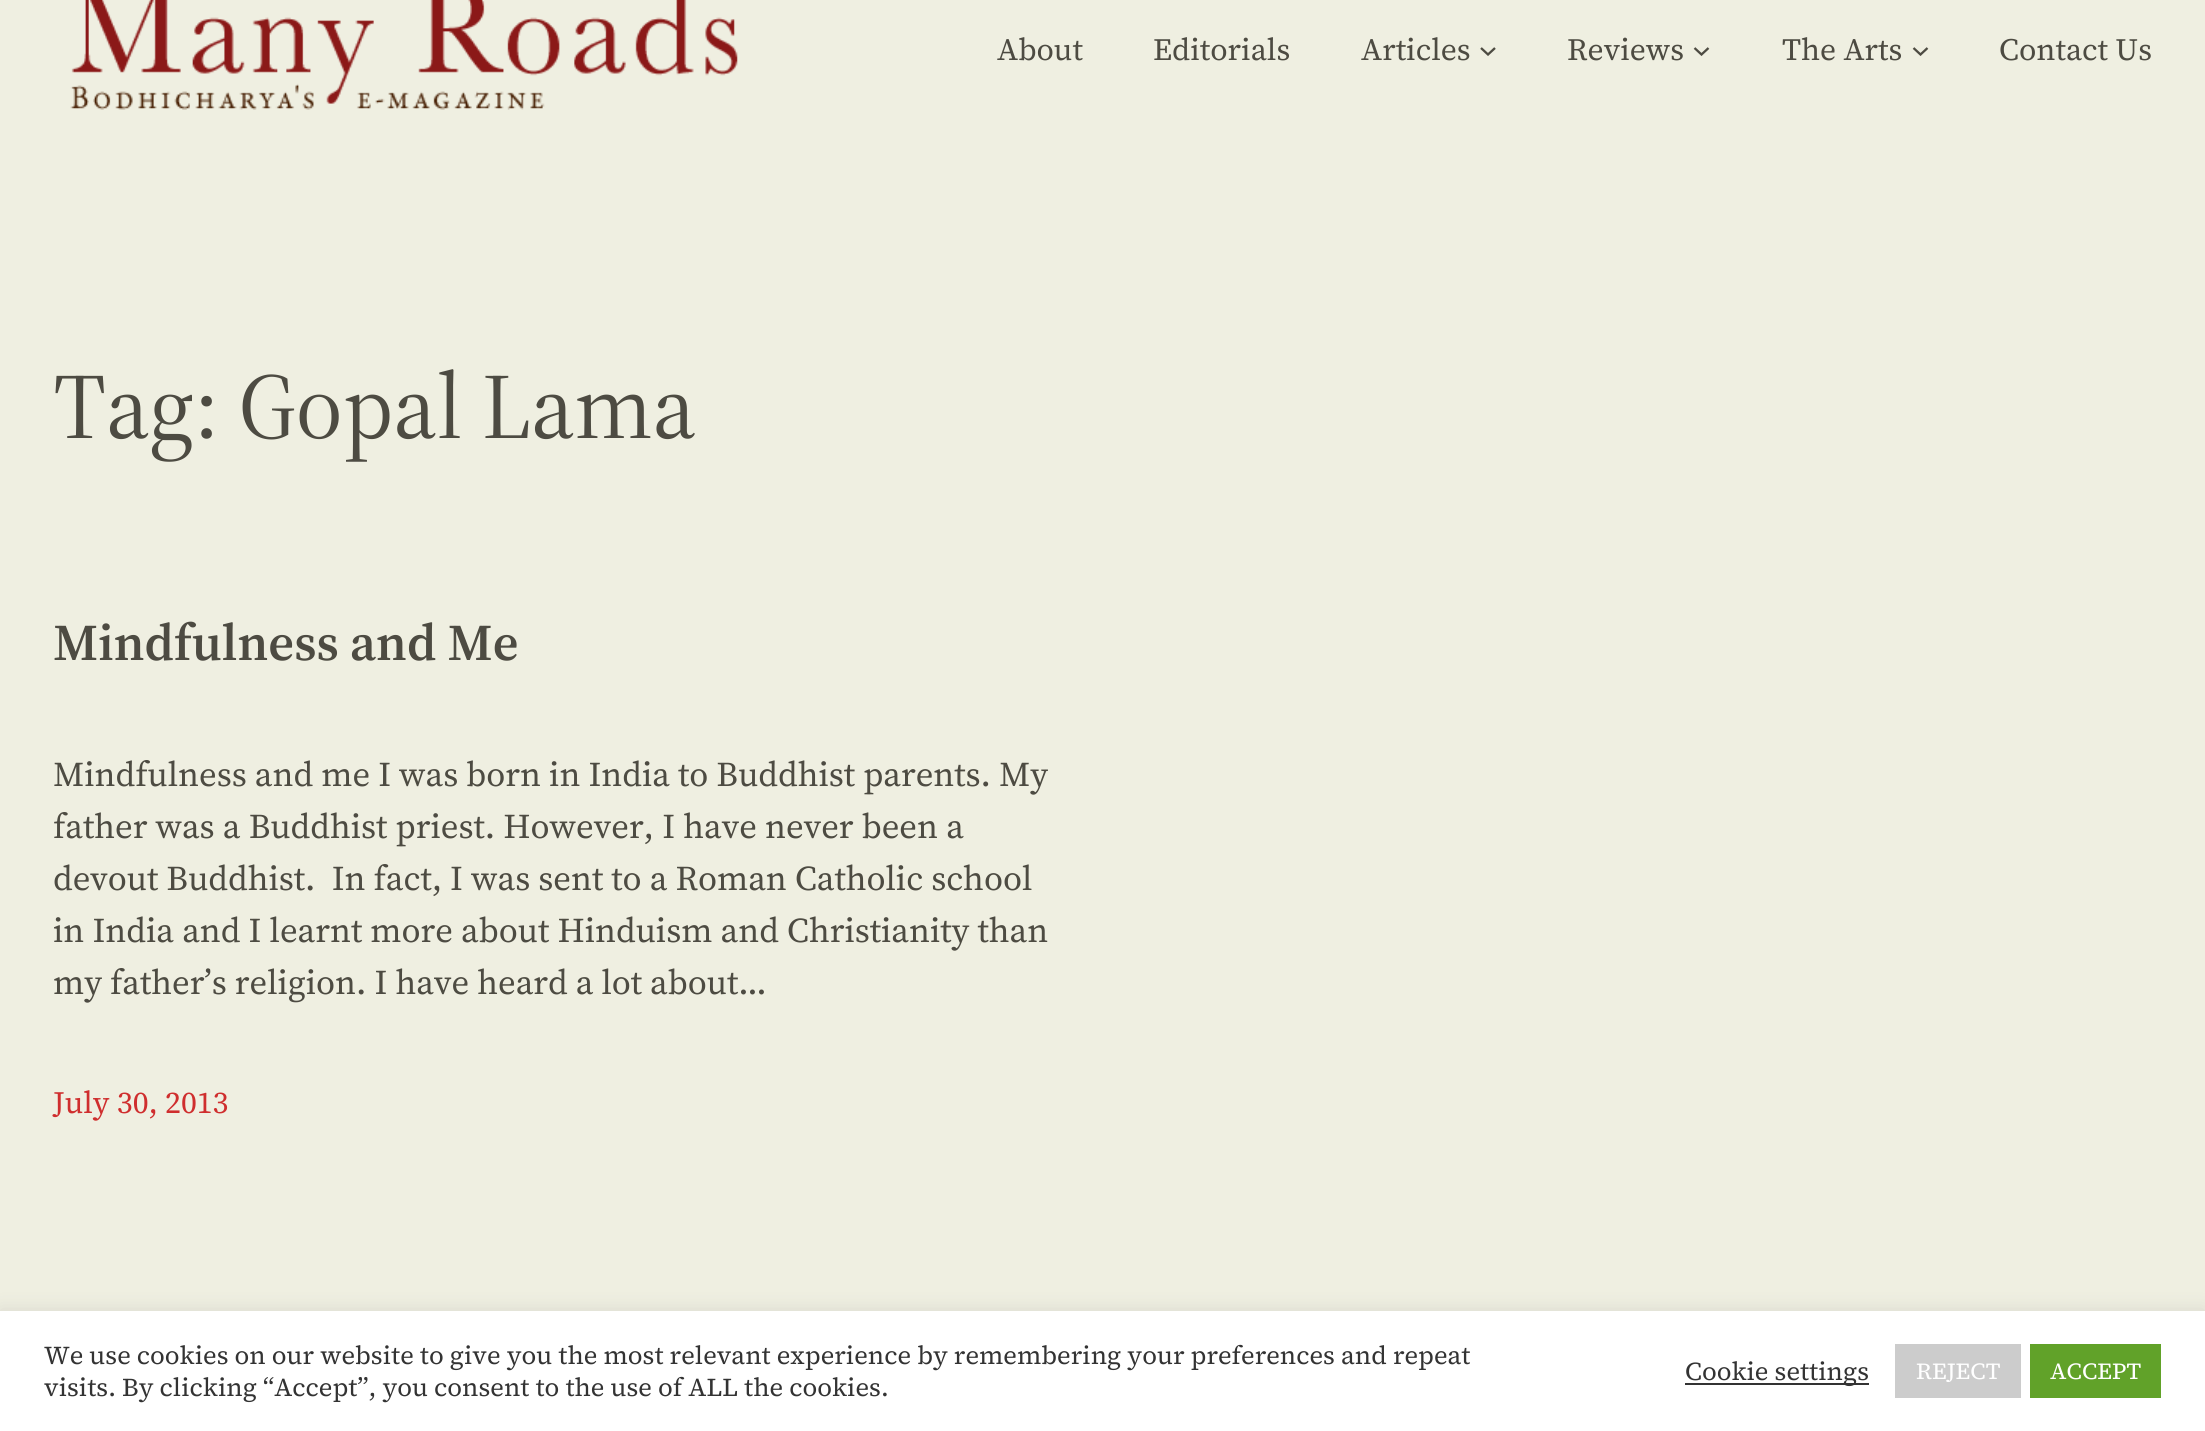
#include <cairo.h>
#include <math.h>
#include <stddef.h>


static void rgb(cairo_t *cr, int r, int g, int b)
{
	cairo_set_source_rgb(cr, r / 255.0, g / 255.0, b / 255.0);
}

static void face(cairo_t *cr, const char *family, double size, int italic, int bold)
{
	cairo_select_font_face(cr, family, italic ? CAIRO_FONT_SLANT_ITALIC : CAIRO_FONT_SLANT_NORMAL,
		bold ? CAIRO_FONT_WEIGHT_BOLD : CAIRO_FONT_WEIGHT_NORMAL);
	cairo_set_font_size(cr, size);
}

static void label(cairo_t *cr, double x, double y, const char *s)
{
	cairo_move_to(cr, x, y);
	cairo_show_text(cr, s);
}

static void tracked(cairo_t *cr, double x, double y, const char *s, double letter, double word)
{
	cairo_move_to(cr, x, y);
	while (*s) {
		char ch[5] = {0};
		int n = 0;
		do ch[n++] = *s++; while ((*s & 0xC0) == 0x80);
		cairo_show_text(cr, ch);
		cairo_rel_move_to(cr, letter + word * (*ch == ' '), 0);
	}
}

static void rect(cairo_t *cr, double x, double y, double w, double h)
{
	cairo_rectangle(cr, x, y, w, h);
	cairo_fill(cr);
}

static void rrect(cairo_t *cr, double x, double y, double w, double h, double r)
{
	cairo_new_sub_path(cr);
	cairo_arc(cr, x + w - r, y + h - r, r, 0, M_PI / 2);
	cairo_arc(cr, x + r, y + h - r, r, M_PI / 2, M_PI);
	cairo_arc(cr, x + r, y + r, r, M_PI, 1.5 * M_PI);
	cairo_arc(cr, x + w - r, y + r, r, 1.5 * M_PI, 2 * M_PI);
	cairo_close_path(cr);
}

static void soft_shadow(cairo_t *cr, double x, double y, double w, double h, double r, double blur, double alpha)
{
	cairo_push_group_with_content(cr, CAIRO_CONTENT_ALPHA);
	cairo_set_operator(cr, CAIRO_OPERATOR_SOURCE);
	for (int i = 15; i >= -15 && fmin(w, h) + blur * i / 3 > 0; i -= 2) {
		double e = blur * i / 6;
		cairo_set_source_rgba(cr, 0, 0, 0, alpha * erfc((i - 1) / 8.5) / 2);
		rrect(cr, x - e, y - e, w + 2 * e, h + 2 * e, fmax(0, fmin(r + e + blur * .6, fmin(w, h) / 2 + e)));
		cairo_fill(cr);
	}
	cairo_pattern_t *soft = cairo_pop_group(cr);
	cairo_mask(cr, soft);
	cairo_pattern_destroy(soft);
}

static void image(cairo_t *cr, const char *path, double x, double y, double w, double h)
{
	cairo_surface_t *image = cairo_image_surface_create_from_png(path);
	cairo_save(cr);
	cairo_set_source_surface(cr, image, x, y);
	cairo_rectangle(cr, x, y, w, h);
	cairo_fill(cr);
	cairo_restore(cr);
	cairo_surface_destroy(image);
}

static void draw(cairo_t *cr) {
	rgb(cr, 239, 239, 225);
	cairo_paint(cr);
	image(cr, "image0.png", 70, 0, 668, 110);
	face(cr, "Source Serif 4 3", 31, 0, 0);
	rgb(cr, 77, 75, 66);
	label(cr, 997, 60, "About");
	label(cr, 1153, 60, "Editorials");
	label(cr, 1361, 60, "Articles");
	cairo_new_path(cr);
	cairo_move_to(cr, 1481, 48);
	cairo_line_to(cr, 1488, 54.5);
	cairo_line_to(cr, 1495, 48);
	cairo_set_line_width(cr, 2.3);
	cairo_stroke(cr);
	label(cr, 1567, 60, "Reviews");
	cairo_new_path(cr);
	cairo_move_to(cr, 1694.5, 48);
	cairo_line_to(cr, 1701.5, 54.5);
	cairo_line_to(cr, 1708.5, 48);
	cairo_stroke(cr);
	label(cr, 1782, 60, "The Arts");
	cairo_new_path(cr);
	cairo_move_to(cr, 1913.5, 48);
	cairo_line_to(cr, 1920.5, 54.5);
	cairo_line_to(cr, 1927.5, 48);
	cairo_stroke(cr);
	label(cr, 1999, 60, "Contact Us");
	face(cr, "Source Serif 4", 92.75, 0, 0);
	label(cr, 53, 438, "Tag: Gopal Lama");
	face(cr, "Source Serif 4 SemiBold", 51.5, 0, 0);
	label(cr, 53, 660, "Mindfulness and Me");
	face(cr, "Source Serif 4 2", 34.65, 0, 0);
	label(cr, 53, 786, "Mindfulness and me I was born in India to Buddhist parents. My");
	tracked(cr, 53, 838, "father was a Buddhist priest. However, I have never been a", 0, 0.1);
	label(cr, 53, 890, "devout Buddhist.  In fact, I was sent to a Roman Catholic school");
	tracked(cr, 53, 942, "in India and I learnt more about Hinduism and Christianity than", 0, 0.1);
	label(cr, 53, 994, "my father’s religion. I have heard a lot about…");
	face(cr, "Source Serif 4 3", 31, 0, 0);
	rgb(cr, 207, 46, 46);
	label(cr, 53, 1113, "July 30, 2013");
	rgb(cr, 172, 171, 171);
	soft_shadow(cr, 0, 1309, 2205, 121, 0, 9, 0.3);
	rgb(cr, 255, 255, 255);
	rect(cr, 0, 1311, 2205, 120);
	face(cr, "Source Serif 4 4", 25.67, 0, 0);
	rgb(cr, 51, 51, 51);
	label(cr, 44, 1364, "We use cookies on our website to give you the most relevant experience by remembering your preferences and repeat");
	label(cr, 44, 1396, "visits. By clicking “Accept”, you consent to the use of ALL the cookies.");
	rect(cr, 1685, 1383, 184, 2);
	label(cr, 1685, 1380, "Cookie settings");
	rgb(cr, 204, 204, 204);
	rect(cr, 1895, 1344, 126, 54);
	face(cr, "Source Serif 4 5", 23, 0, 0);
	rgb(cr, 255, 255, 255);
	label(cr, 1916, 1379, "REJECT");
	rgb(cr, 97, 162, 41);
	rect(cr, 2030, 1344, 131, 54);
	rgb(cr, 255, 255, 255);
	label(cr, 2050, 1379, "ACCEPT");
}

int main(void) {
	cairo_surface_t *surface = cairo_image_surface_create(CAIRO_FORMAT_RGB24, 2205, 1431);
	cairo_t *cr = cairo_create(surface);
	cairo_font_options_t *options = cairo_font_options_create();
	cairo_font_options_set_hint_metrics(options, CAIRO_HINT_METRICS_OFF);
	cairo_font_options_set_hint_style(options, CAIRO_HINT_STYLE_NONE);
	cairo_set_font_options(cr, options);
	cairo_set_miter_limit(cr, 4);
	draw(cr);
	cairo_surface_write_to_png(surface, "render.png");
	cairo_font_options_destroy(options);
	cairo_destroy(cr);
	cairo_surface_destroy(surface);
	return 0;
}
